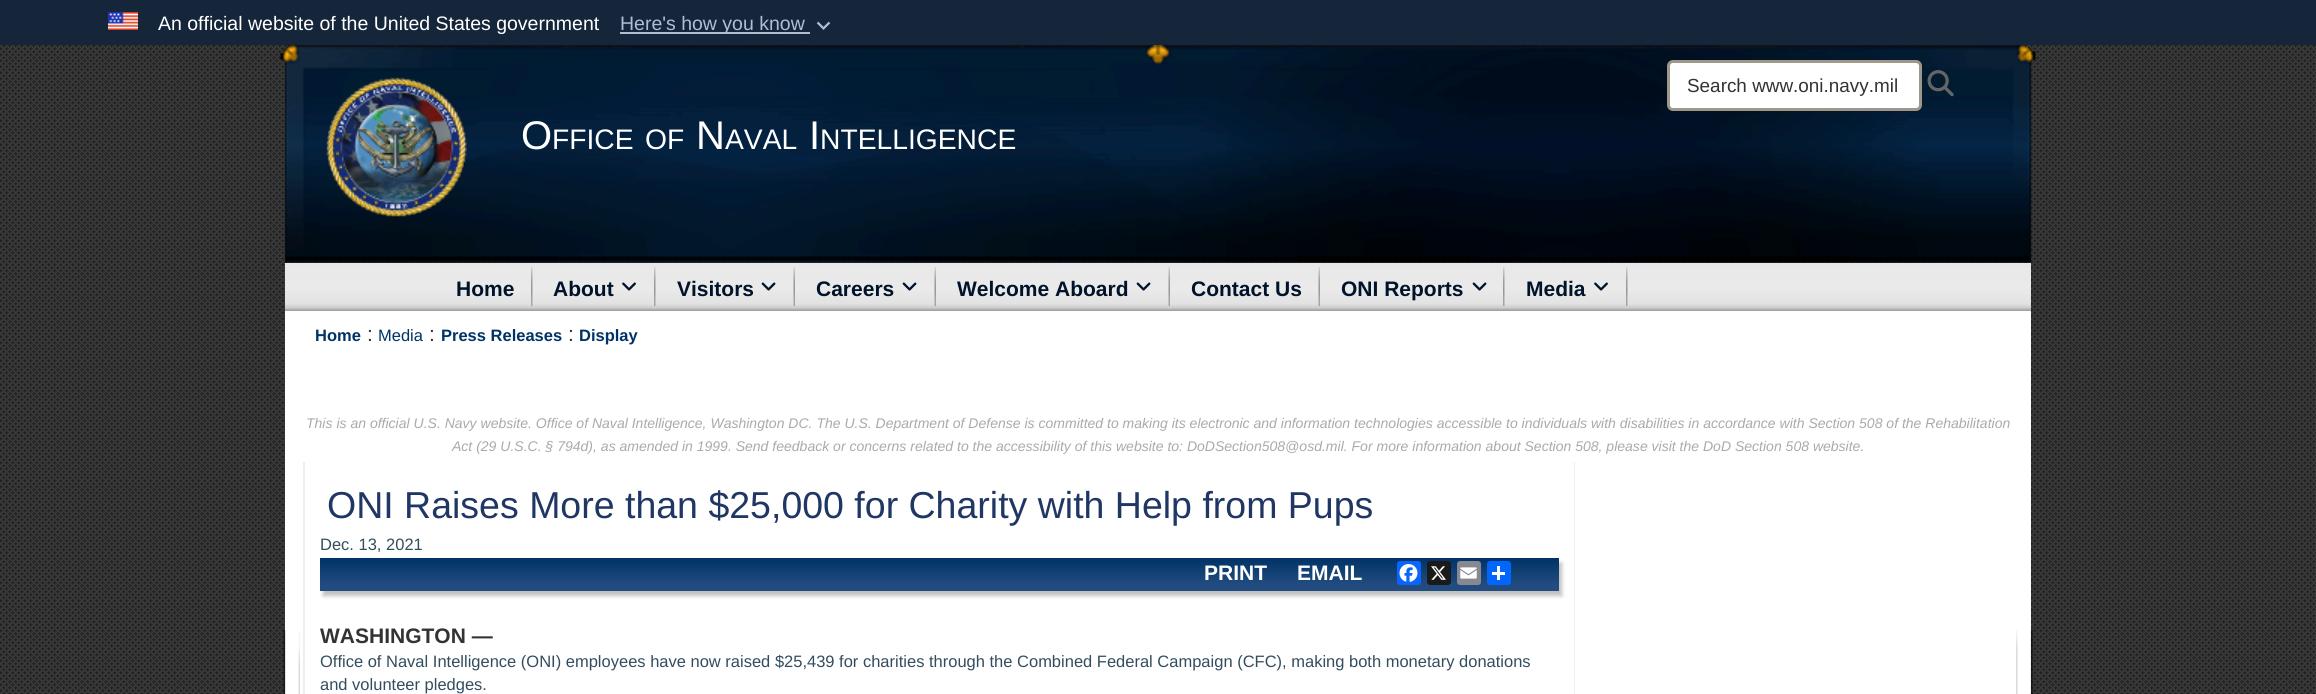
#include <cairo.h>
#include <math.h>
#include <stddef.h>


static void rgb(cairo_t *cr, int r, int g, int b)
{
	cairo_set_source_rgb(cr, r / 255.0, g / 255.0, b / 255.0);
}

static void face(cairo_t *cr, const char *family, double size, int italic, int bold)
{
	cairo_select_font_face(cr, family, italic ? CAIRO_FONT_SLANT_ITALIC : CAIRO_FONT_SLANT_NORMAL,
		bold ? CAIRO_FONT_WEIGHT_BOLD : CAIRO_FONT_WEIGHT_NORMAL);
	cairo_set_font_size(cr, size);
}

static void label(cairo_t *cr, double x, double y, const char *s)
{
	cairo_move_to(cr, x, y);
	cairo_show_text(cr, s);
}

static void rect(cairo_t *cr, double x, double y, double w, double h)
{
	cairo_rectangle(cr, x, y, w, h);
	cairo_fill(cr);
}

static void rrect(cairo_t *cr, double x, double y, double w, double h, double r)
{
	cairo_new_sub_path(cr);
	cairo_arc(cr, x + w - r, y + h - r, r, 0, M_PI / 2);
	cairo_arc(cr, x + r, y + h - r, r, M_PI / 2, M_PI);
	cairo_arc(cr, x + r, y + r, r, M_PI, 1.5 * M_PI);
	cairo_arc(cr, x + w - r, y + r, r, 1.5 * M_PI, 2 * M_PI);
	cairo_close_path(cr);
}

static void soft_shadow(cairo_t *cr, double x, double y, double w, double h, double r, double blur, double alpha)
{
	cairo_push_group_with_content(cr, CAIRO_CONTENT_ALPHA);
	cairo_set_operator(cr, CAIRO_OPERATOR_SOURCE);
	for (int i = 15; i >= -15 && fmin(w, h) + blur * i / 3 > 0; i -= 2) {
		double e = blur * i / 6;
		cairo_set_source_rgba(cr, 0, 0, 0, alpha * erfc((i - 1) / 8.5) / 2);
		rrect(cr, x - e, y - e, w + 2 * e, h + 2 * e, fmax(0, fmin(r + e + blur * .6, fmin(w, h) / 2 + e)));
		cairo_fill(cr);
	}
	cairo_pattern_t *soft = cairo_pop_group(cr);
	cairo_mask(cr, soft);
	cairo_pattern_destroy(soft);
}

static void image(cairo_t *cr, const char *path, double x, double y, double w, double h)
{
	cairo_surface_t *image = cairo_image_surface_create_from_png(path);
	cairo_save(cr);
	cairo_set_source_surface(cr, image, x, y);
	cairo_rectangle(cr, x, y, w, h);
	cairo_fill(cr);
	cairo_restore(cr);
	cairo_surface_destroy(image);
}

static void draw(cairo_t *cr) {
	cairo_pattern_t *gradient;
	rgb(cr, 255, 255, 255);
	cairo_paint(cr);
	image(cr, "image0.png", 0, 45, 2316, 649);
	rgb(cr, 21, 38, 59);
	rect(cr, 0, 0, 2316, 45);
	image(cr, "image1.png", 108, 12, 30, 18);
	face(cr, "Liberation Sans", 19.5, 0, 0);
	rgb(cr, 255, 255, 255);
	label(cr, 158, 30, "An official website of the United States government");
	rgb(cr, 174, 191, 212);
	rect(cr, 620, 32, 190, 2);
	label(cr, 620, 30, "Here's how you know");
	image(cr, "image2.png", 816, 21, 15, 9);
	image(cr, "image3.png", 280, 45, 1756, 218);
	image(cr, "image4.png", 326, 77, 141, 140);
	rgb(cr, 255, 255, 255);
	rrect(cr, 1668.5, 61.5, 252, 48, 4.5);
	cairo_fill_preserve(cr);
	rgb(cr, 159, 151, 138);
	cairo_set_line_width(cr, 3);
	cairo_stroke(cr);
	face(cr, "Liberation Sans", 18.9, 0, 0);
	rgb(cr, 51, 51, 51);
	label(cr, 1687, 92, "Search www.oni.navy.mil");
	image(cr, "image5.png", 1927, 70, 27, 27);
	face(cr, "Liberation Sans", 40, 0, 0);
	rgb(cr, 255, 255, 255);
	label(cr, 521, 149, "O");
	face(cr, "Liberation Sans", 28.25, 0, 0);
	label(cr, 552, 149, "FFICE");
	label(cr, 645, 149, "OF");
	face(cr, "Liberation Sans", 40, 0, 0);
	label(cr, 696, 149, "N");
	face(cr, "Liberation Sans", 28.25, 0, 0);
	label(cr, 725, 149, "AVAL");
	face(cr, "Liberation Sans", 40, 0, 0);
	label(cr, 809, 149, "I");
	face(cr, "Liberation Sans", 28.25, 0, 0);
	label(cr, 820, 149, "NTELLIGENCE");
	gradient = cairo_pattern_create_linear(1158, 262, 1158, 311);
	cairo_pattern_add_color_stop_rgba(gradient, 0, 0.91, 0.91, 0.91, 1);
	cairo_pattern_add_color_stop_rgba(gradient, 0.55, 0.918, 0.918, 0.918, 1);
	cairo_pattern_add_color_stop_rgba(gradient, 0.85, 0.886, 0.886, 0.886, 1);
	cairo_pattern_add_color_stop_rgba(gradient, 0.93, 0.808, 0.808, 0.808, 1);
	cairo_pattern_add_color_stop_rgba(gradient, 1, 0.608, 0.608, 0.608, 1);
	cairo_set_source(cr, gradient);
	cairo_pattern_destroy(gradient);
	rect(cr, 285, 263, 1746, 48);
	image(cr, "image6.png", 531, 267, 2, 39);
	face(cr, "Liberation Sans", 21, 0, 1);
	rgb(cr, 0, 19, 43);
	label(cr, 456, 296, "Home");
	image(cr, "image6.png", 654, 267, 2, 39);
	label(cr, 553, 296, "About");
	image(cr, "image7.png", 622, 282, 14, 9);
	image(cr, "image8.png", 793, 267, 2, 39);
	label(cr, 677, 296, "Visitors");
	image(cr, "image9.png", 761, 282, 15, 9);
	image(cr, "image8.png", 934, 267, 2, 39);
	label(cr, 816, 296, "Careers");
	image(cr, "image9.png", 902, 282, 15, 9);
	image(cr, "image8.png", 1168, 267, 2, 39);
	label(cr, 957, 296, "Welcome Aboard");
	image(cr, "image9.png", 1136, 282, 15, 9);
	image(cr, "image8.png", 1318, 267, 2, 39);
	label(cr, 1191, 296, "Contact Us");
	image(cr, "image6.png", 1503, 267, 2, 39);
	label(cr, 1341, 296, "ONI Reports");
	image(cr, "image9.png", 1472, 282, 15, 9);
	image(cr, "image6.png", 1626, 267, 2, 39);
	label(cr, 1526, 296, "Media");
	image(cr, "image7.png", 1594, 282, 14, 9);
	rgb(cr, 255, 255, 255);
	rect(cr, 285, 311, 1746, 383);
	face(cr, "Liberation Sans", 16.5, 0, 1);
	rgb(cr, 0, 51, 102);
	label(cr, 315, 341, "Home");
	face(cr, "Liberation Sans", 21, 0, 0);
	rgb(cr, 51, 51, 51);
	label(cr, 367, 341, ":");
	face(cr, "Liberation Sans", 16.5, 0, 0);
	rgb(cr, 0, 51, 102);
	label(cr, 378, 341, "Media");
	face(cr, "Liberation Sans", 21, 0, 0);
	rgb(cr, 51, 51, 51);
	label(cr, 429, 341, ":");
	face(cr, "Liberation Sans", 16.5, 0, 1);
	rgb(cr, 0, 51, 102);
	label(cr, 441, 341, "Press Releases");
	face(cr, "Liberation Sans", 21, 0, 0);
	rgb(cr, 51, 51, 51);
	label(cr, 568, 341, ":");
	face(cr, "Liberation Sans", 16.5, 0, 1);
	rgb(cr, 0, 51, 102);
	label(cr, 579, 341, "Display");
	image(cr, "image10.png", 283, 630, 1750, 64);
	face(cr, "Liberation Sans", 14.02, 1, 0);
	rgb(cr, 170, 170, 170);
	label(cr, 306, 428, "This is an official U.S. Navy website. Office of Naval Intelligence, Washington DC. The U.S. Department of Defense is committed to making its electronic and information technologies accessible to individuals with disabilities in accordance with Section 508 of the Rehabilitation");
	label(cr, 452, 451, "Act (29 U.S.C. § 794d), as amended in 1999. Send feedback or concerns related to the accessibility of this website to: DoDSection508@osd.mil. For more information about Section 508, please visit the DoD Section 508 website.");
	rgb(cr, 238, 238, 238);
	rect(cr, 1574, 462, 1, 232);
	rect(cr, 303, 462, 2, 232);
	face(cr, "Liberation Sans", 37.5, 0, 0);
	rgb(cr, 32, 55, 100);
	label(cr, 327, 518, "ONI Raises More than $25,000 for Charity with Help from Pups");
	face(cr, "Liberation Sans", 16.5, 0, 0);
	rgb(cr, 51, 77, 94);
	label(cr, 320, 550, "Dec. 13, 2021");
	rgb(cr, 192, 192, 192);
	soft_shadow(cr, 323, 563, 1239, 33, 0, 2, 1);
	gradient = cairo_pattern_create_linear(939, 558, 939, 591);
	cairo_pattern_add_color_stop_rgba(gradient, 0, 0, 0.2, 0.4, 1);
	cairo_pattern_add_color_stop_rgba(gradient, 0.8, 0.133, 0.298, 0.502, 1);
	cairo_set_source(cr, gradient);
	cairo_pattern_destroy(gradient);
	rect(cr, 320, 558, 1239, 33);
	face(cr, "Liberation Sans", 21, 0, 1);
	rgb(cr, 255, 255, 255);
	label(cr, 1204, 580, "PRINT");
	label(cr, 1297, 580, "EMAIL");
	rgb(cr, 8, 102, 255);
	rrect(cr, 1397, 561, 24, 24, 3);
	cairo_fill(cr);
	image(cr, "image11.png", 1399, 564, 19, 18);
	rgb(cr, 26, 26, 26);
	rrect(cr, 1427, 561, 24, 24, 3);
	cairo_fill(cr);
	image(cr, "image12.png", 1431, 566, 15, 14);
	rgb(cr, 136, 137, 144);
	rrect(cr, 1457, 561, 24, 24, 3);
	cairo_fill(cr);
	image(cr, "image13.png", 1460, 567, 17, 12);
	rgb(cr, 1, 102, 255);
	rrect(cr, 1487, 561, 24, 24, 3);
	cairo_fill(cr);
	rgb(cr, 255, 255, 255);
	rect(cr, 1497, 566, 3, 14);
	rect(cr, 1492, 572, 13, 3);
	rgb(cr, 51, 51, 51);
	label(cr, 320, 643, "WASHINGTON —");
	face(cr, "Liberation Sans", 16.5, 0, 0);
	rgb(cr, 51, 77, 94);
	label(cr, 320, 667, "Office of Naval Intelligence (ONI) employees have now raised $25,439 for charities through the Combined Federal Campaign (CFC), making both monetary donations");
	label(cr, 320, 690, "and volunteer pledges.");
}

int main(void) {
	cairo_surface_t *surface = cairo_image_surface_create(CAIRO_FORMAT_RGB24, 2316, 694);
	cairo_t *cr = cairo_create(surface);
	cairo_font_options_t *options = cairo_font_options_create();
	cairo_font_options_set_hint_metrics(options, CAIRO_HINT_METRICS_OFF);
	cairo_font_options_set_hint_style(options, CAIRO_HINT_STYLE_NONE);
	cairo_set_font_options(cr, options);
	cairo_set_miter_limit(cr, 4);
	draw(cr);
	cairo_surface_write_to_png(surface, "render.png");
	cairo_font_options_destroy(options);
	cairo_destroy(cr);
	cairo_surface_destroy(surface);
	return 0;
}
